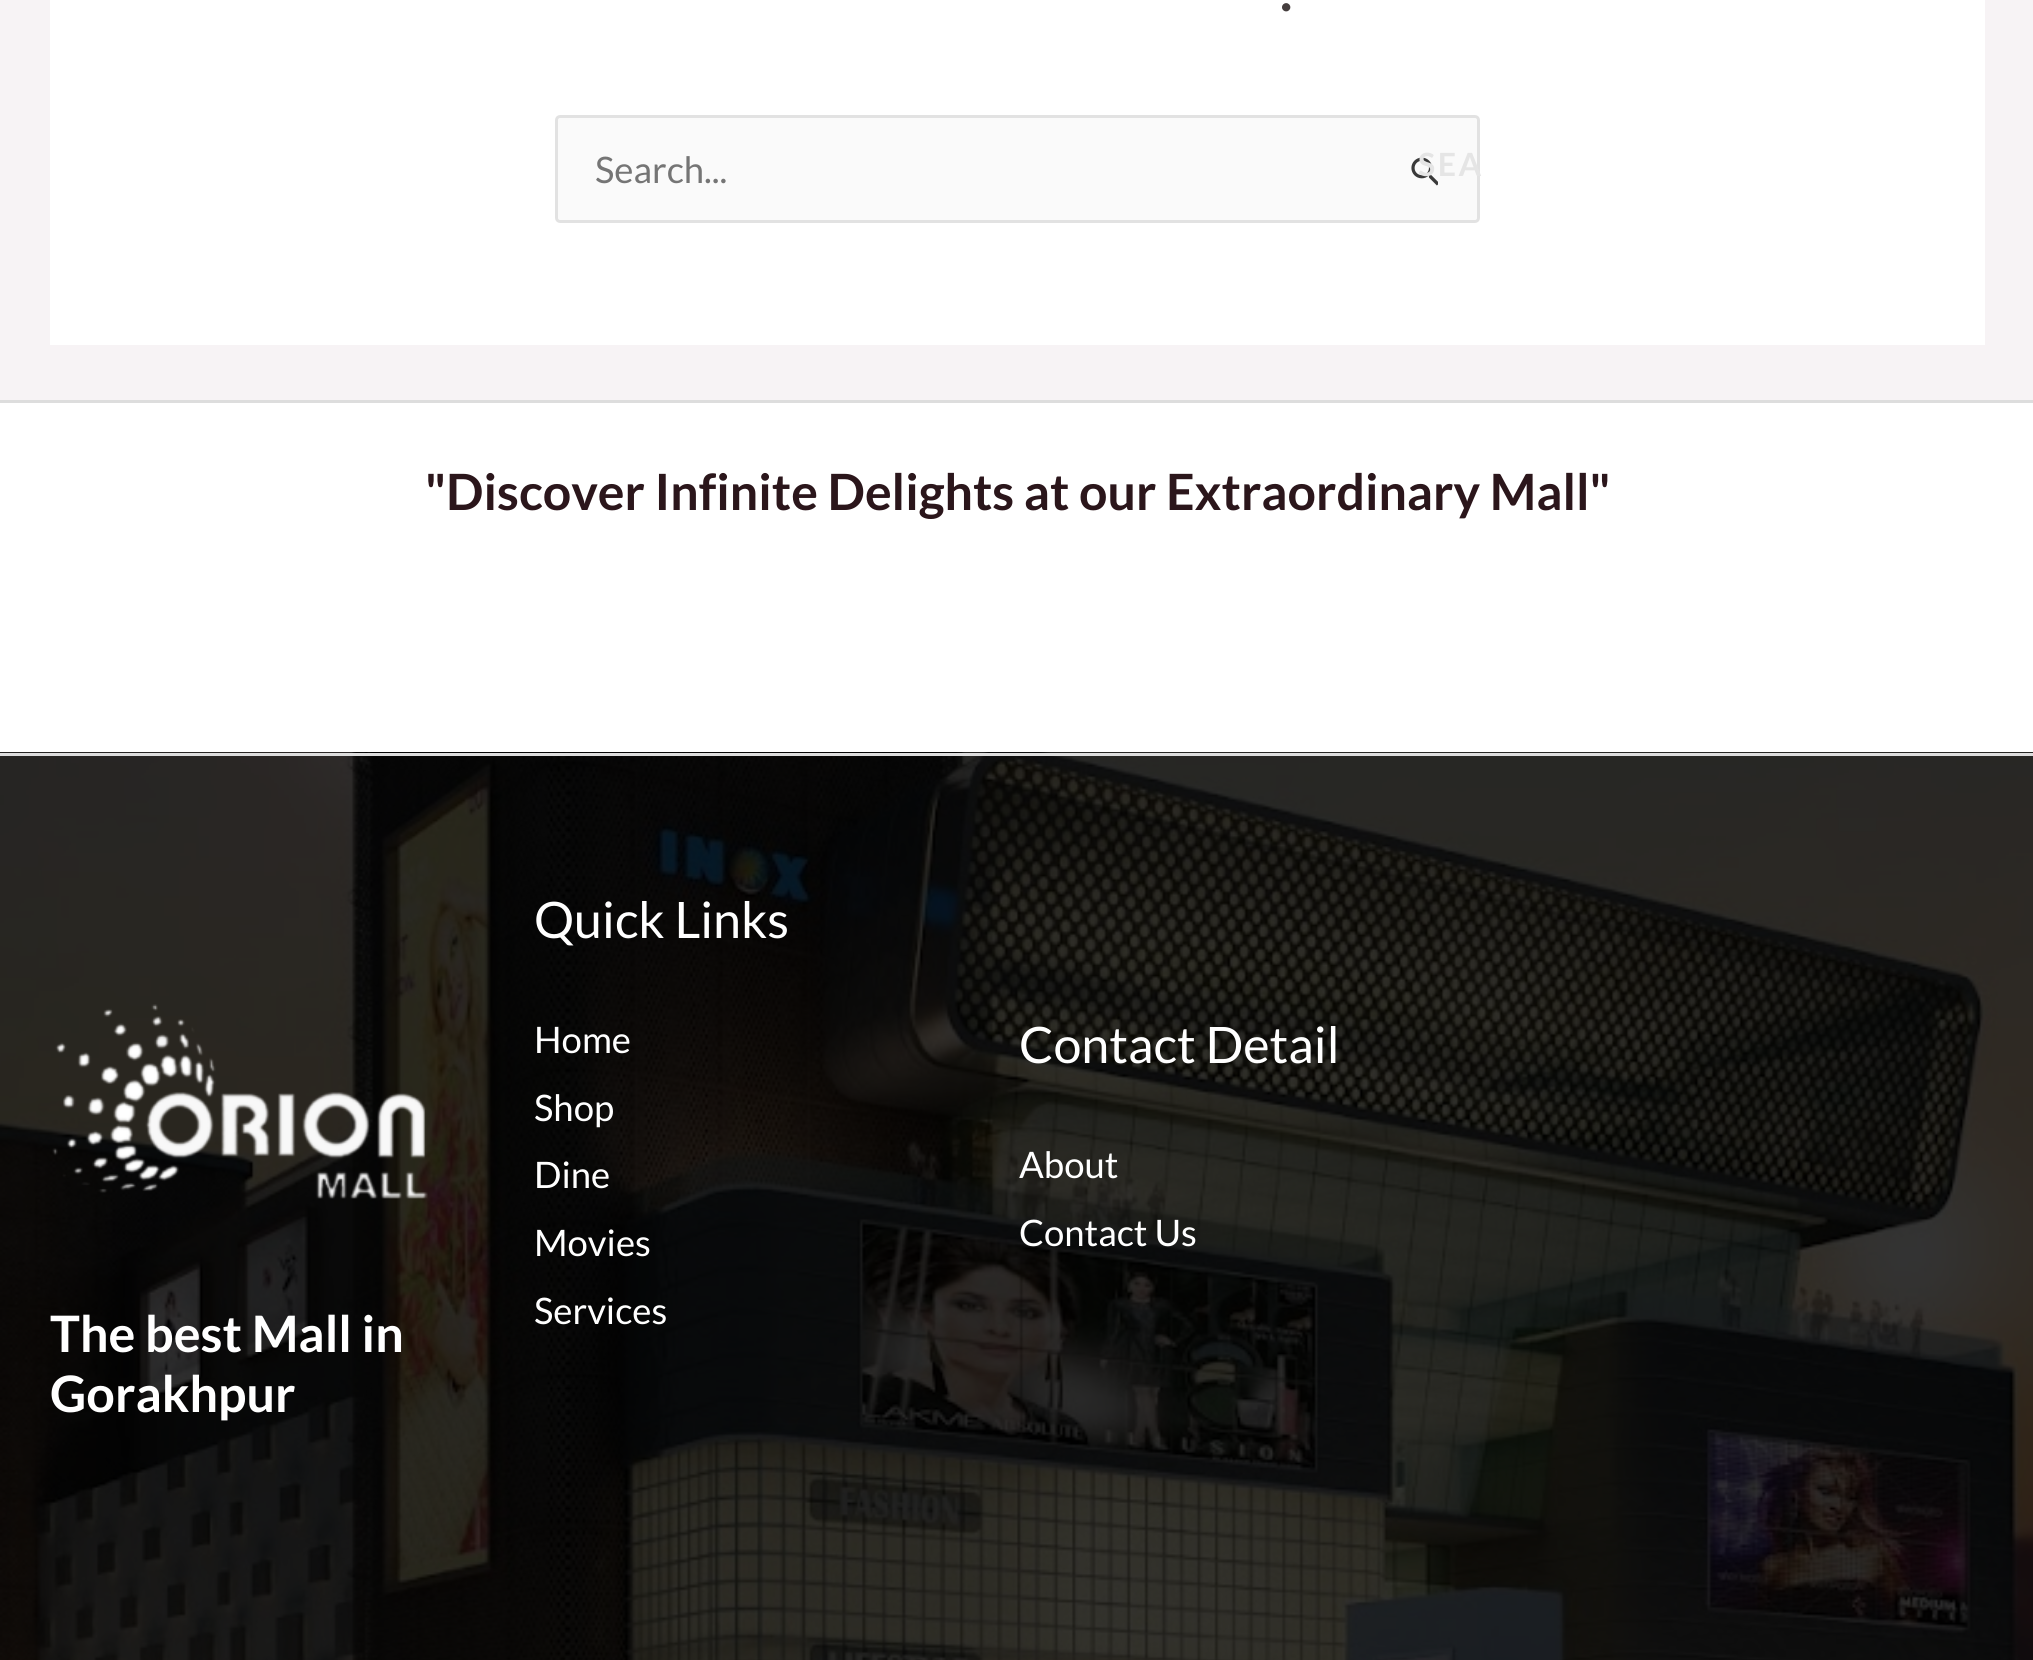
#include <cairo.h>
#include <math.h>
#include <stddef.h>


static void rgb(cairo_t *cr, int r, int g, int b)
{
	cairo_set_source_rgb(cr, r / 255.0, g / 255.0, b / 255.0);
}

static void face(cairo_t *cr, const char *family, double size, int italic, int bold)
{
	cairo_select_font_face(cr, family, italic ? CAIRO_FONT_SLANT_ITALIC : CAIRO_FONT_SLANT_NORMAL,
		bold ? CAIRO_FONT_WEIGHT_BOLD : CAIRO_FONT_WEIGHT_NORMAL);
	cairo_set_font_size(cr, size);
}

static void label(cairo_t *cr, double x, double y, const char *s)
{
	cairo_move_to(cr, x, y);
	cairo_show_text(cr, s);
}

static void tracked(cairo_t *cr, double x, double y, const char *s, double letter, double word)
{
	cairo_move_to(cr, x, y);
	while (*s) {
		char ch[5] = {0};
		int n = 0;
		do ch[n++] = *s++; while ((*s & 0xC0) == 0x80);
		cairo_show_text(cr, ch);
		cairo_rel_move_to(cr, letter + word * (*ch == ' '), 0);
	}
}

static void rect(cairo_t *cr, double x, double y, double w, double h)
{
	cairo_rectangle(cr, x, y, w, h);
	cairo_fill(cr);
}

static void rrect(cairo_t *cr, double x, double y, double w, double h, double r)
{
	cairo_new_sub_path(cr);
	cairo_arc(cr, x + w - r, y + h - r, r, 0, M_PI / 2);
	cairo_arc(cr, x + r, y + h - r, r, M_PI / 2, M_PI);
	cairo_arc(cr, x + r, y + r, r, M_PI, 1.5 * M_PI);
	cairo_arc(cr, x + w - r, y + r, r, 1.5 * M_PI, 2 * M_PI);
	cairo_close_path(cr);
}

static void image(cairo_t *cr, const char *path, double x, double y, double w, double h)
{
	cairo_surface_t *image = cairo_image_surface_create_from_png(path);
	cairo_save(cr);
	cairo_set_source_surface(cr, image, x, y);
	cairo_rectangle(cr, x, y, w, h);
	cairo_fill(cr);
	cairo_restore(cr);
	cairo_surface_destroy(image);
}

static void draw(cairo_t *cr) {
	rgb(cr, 247, 243, 245);
	cairo_paint(cr);
	rgb(cr, 255, 255, 255);
	rect(cr, 50, 0, 1935, 345);
	face(cr, "Lato", 55, 0, 1);
	rgb(cr, 69, 62, 62);
	label(cr, 1280, 11, ".");
	rgb(cr, 250, 250, 250);
	rrect(cr, 556.5, 116.5, 922, 105, 3.5);
	cairo_fill_preserve(cr);
	rgb(cr, 226, 226, 226);
	cairo_set_line_width(cr, 3);
	cairo_stroke(cr);
	face(cr, "Lato", 36.5, 0, 0);
	rgb(cr, 117, 117, 117);
	label(cr, 595, 183, "Search...");
	image(cr, "image0.png", 1411, 157, 27, 29);
	face(cr, "Lato", 32, 0, 1);
	rgb(cr, 229, 229, 229);
	tracked(cr, 1418, 176, "SEA", 2.5, 0);
	rgb(cr, 255, 255, 255);
	rect(cr, 0, 403, 2033, 349);
	rgb(cr, 221, 221, 221);
	rect(cr, 0, 400, 2033, 3);
	face(cr, "Lato", 50, 0, 1);
	rgb(cr, 43, 22, 27);
	label(cr, 425, 510, "\"Discover Infinite Delights at our Extraordinary Mall\"");
	image(cr, "image1.png", 0, 752, 2033, 908);
	rgb(cr, 221, 221, 221);
	rect(cr, 0, 753, 2033, 3);
	face(cr, "Lato", 50.25, 0, 0);
	rgb(cr, 255, 255, 255);
	label(cr, 534, 938, "Quick Links");
	face(cr, "Lato", 36.5, 0, 0);
	label(cr, 534, 1053, "Home");
	label(cr, 534, 1121, "Shop");
	label(cr, 534, 1188, "Dine");
	label(cr, 534, 1256, "Movies");
	label(cr, 534, 1324, "Services");
	face(cr, "Lato", 50.25, 0, 0);
	label(cr, 1019, 1063, "Contact Detail");
	face(cr, "Lato", 36.5, 0, 0);
	label(cr, 1019, 1178, "About");
	label(cr, 1019, 1246, "Contact Us");
	image(cr, "image2.png", 52, 1004, 376, 195);
	face(cr, "Lato", 50.25, 0, 1);
	label(cr, 50, 1352, "The best Mall in");
	label(cr, 50, 1412, "Gorakhpur");
}

int main(void) {
	cairo_surface_t *surface = cairo_image_surface_create(CAIRO_FORMAT_RGB24, 2033, 1660);
	cairo_t *cr = cairo_create(surface);
	cairo_font_options_t *options = cairo_font_options_create();
	cairo_font_options_set_hint_metrics(options, CAIRO_HINT_METRICS_OFF);
	cairo_font_options_set_hint_style(options, CAIRO_HINT_STYLE_NONE);
	cairo_set_font_options(cr, options);
	cairo_set_miter_limit(cr, 4);
	draw(cr);
	cairo_surface_write_to_png(surface, "render.png");
	cairo_font_options_destroy(options);
	cairo_destroy(cr);
	cairo_surface_destroy(surface);
	return 0;
}
